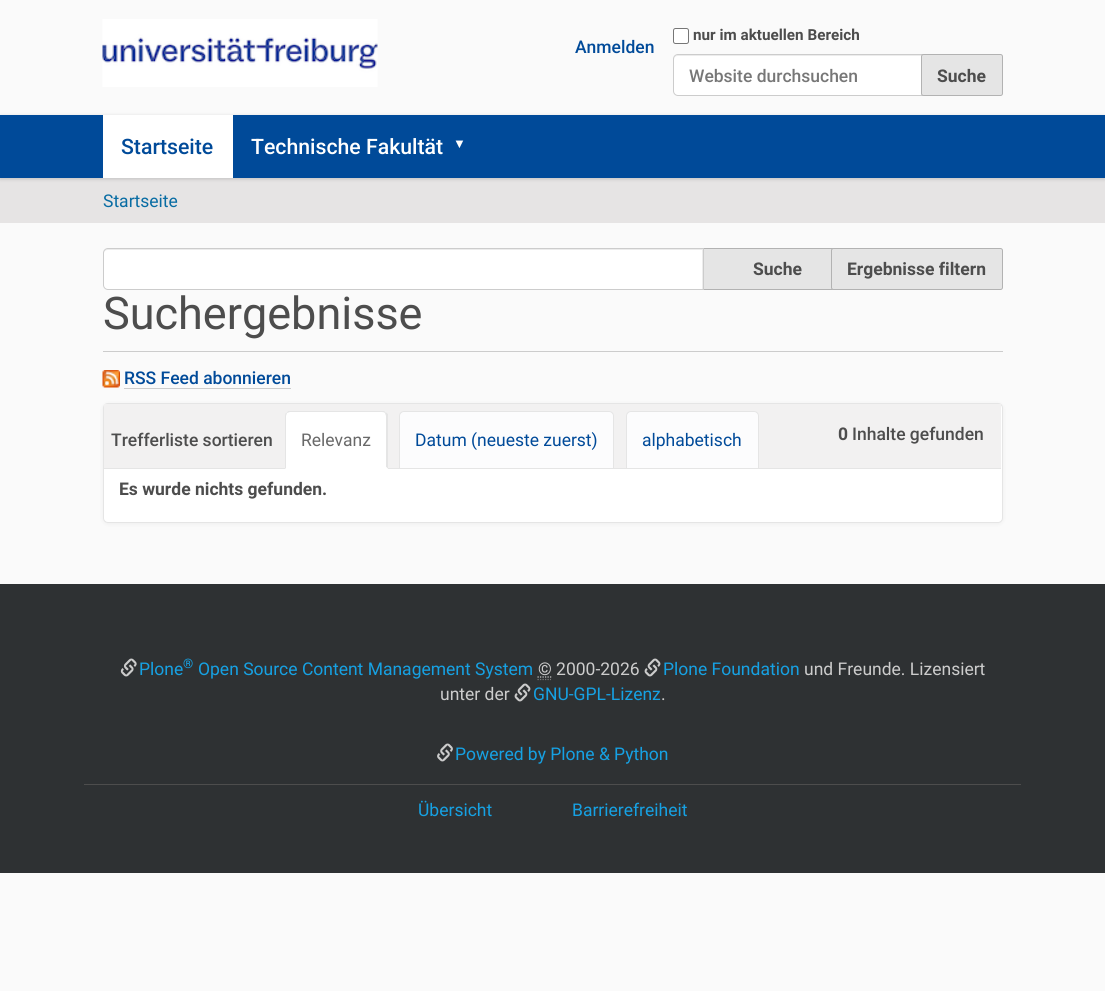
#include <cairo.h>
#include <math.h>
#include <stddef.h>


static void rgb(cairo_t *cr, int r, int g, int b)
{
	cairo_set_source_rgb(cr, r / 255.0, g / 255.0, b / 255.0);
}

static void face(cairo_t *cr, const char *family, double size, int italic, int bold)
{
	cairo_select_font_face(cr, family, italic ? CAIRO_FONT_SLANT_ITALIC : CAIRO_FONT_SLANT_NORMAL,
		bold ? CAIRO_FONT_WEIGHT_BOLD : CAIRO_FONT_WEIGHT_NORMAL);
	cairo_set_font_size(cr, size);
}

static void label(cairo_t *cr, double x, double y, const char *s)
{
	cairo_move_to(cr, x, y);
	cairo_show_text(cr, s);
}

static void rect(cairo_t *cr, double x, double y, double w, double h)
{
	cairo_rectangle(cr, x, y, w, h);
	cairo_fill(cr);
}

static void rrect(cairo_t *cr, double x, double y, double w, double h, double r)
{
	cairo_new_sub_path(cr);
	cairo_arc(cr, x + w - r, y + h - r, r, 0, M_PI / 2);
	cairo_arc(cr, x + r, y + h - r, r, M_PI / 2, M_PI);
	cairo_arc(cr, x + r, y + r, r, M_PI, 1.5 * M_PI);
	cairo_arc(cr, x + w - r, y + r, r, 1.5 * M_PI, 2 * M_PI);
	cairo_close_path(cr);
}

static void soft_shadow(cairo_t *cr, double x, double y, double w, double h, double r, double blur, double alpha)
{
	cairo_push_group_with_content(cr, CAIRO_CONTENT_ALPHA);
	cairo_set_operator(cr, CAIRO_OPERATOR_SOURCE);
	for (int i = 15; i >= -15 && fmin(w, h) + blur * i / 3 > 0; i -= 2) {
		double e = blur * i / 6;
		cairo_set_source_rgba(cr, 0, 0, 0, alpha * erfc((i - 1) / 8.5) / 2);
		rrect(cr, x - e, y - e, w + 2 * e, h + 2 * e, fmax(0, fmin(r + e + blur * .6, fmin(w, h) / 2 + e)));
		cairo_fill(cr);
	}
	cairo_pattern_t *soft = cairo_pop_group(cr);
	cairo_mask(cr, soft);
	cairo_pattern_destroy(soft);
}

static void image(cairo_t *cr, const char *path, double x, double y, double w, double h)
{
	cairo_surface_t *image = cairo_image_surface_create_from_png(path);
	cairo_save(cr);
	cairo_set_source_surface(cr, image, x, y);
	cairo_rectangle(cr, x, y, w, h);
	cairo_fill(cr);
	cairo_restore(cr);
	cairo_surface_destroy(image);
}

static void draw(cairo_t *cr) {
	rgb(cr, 250, 250, 250);
	cairo_paint(cr);
	image(cr, "image0.png", 102, 19, 276, 68);
	face(cr, "Roboto Medium", 17.5, 0, 0);
	rgb(cr, 0, 74, 153);
	label(cr, 575, 53, "Anmelden");
	rgb(cr, 255, 255, 255);
	rrect(cr, 673.5, 28.5, 15, 15, 2);
	cairo_fill_preserve(cr);
	rgb(cr, 118, 118, 118);
	cairo_set_line_width(cr, 1);
	cairo_stroke(cr);
	face(cr, "Roboto", 15.25, 0, 1);
	rgb(cr, 77, 77, 77);
	label(cr, 693, 40, "nur im aktuellen Bereich");
	rgb(cr, 255, 255, 255);
	cairo_new_path(cr);
	cairo_move_to(cr, 678, 54);
	cairo_line_to(cr, 923, 54);
	cairo_line_to(cr, 923, 96);
	cairo_line_to(cr, 678, 96);
	cairo_curve_to(cr, 675, 96, 673, 94, 673, 91);
	cairo_line_to(cr, 673, 59);
	cairo_curve_to(cr, 673, 56, 675, 54, 678, 54);
	cairo_close_path(cr);
	cairo_fill(cr);
	rgb(cr, 236, 236, 236);
	cairo_new_path(cr);
	cairo_move_to(cr, 678, 56);
	cairo_line_to(cr, 921, 56);
	cairo_line_to(cr, 921, 55);
	cairo_line_to(cr, 678, 55);
	cairo_curve_to(cr, 676, 55, 674, 57, 674, 59);
	cairo_line_to(cr, 674, 60);
	cairo_curve_to(cr, 674, 58, 675, 56, 678, 56);
	cairo_close_path(cr);
	cairo_fill(cr);
	cairo_new_path(cr);
	cairo_move_to(cr, 678, 54.5);
	cairo_line_to(cr, 922.5, 54.5);
	cairo_line_to(cr, 922.5, 95.5);
	cairo_line_to(cr, 678, 95.5);
	cairo_curve_to(cr, 675.5, 95.5, 673.5, 93.5, 673.5, 91);
	cairo_line_to(cr, 673.5, 59);
	cairo_curve_to(cr, 673.5, 56.5, 675.5, 54.5, 678, 54.5);
	cairo_close_path(cr);
	rgb(cr, 204, 204, 204);
	cairo_stroke(cr);
	face(cr, "Roboto Medium", 17.5, 0, 0);
	rgb(cr, 119, 119, 119);
	label(cr, 689, 82, "Website durchsuchen");
	rgb(cr, 229, 229, 229);
	rrect(cr, 921.5, 54.5, 81, 41, 2);
	cairo_fill_preserve(cr);
	rgb(cr, 178, 178, 178);
	cairo_stroke(cr);
	face(cr, "Roboto", 17.5, 0, 1);
	rgb(cr, 77, 77, 77);
	label(cr, 937, 82, "Suche");
	rgb(cr, 230, 228, 228);
	rect(cr, 0, 178, 1105, 45);
	rgb(cr, 0, 0, 0);
	soft_shadow(cr, 0, 116, 1105, 63, 0, 2, 0.17);
	rgb(cr, 0, 74, 153);
	rect(cr, 0, 115, 1105, 63);
	rgb(cr, 255, 255, 255);
	rect(cr, 103, 115, 130, 63);
	face(cr, "Roboto Medium", 21.25, 0, 0);
	rgb(cr, 0, 74, 153);
	label(cr, 121, 154, "Startseite");
	rgb(cr, 255, 255, 255);
	label(cr, 251, 154, "Technische Fakultät");
	face(cr, "Liberation Sans", 13, 0, 1);
	label(cr, 453, 148, "▼");
	face(cr, "Roboto", 17.5, 0, 0);
	rgb(cr, 8, 108, 163);
	label(cr, 103, 207, "Startseite");
	rgb(cr, 229, 229, 229);
	rect(cr, 704, 249, 128, 40);
	cairo_rectangle(cr, 703.5, 248.5, 149, 41);
	rgb(cr, 178, 178, 178);
	cairo_stroke(cr);
	rgb(cr, 255, 255, 255);
	cairo_new_path(cr);
	cairo_move_to(cr, 108, 248);
	cairo_line_to(cr, 704, 248);
	cairo_line_to(cr, 704, 290);
	cairo_line_to(cr, 108, 290);
	cairo_curve_to(cr, 105, 290, 103, 288, 103, 285);
	cairo_line_to(cr, 103, 253);
	cairo_curve_to(cr, 103, 250, 105, 248, 108, 248);
	cairo_close_path(cr);
	cairo_fill(cr);
	rgb(cr, 236, 236, 236);
	cairo_new_path(cr);
	cairo_move_to(cr, 108, 250);
	cairo_line_to(cr, 702, 250);
	cairo_line_to(cr, 702, 289);
	cairo_line_to(cr, 703, 289);
	cairo_line_to(cr, 703, 249);
	cairo_line_to(cr, 108, 249);
	cairo_curve_to(cr, 105, 249, 104, 251, 104, 254);
	cairo_curve_to(cr, 104, 252, 105, 250, 108, 250);
	cairo_close_path(cr);
	cairo_fill(cr);
	cairo_new_path(cr);
	cairo_move_to(cr, 108, 248.5);
	cairo_line_to(cr, 703.5, 248.5);
	cairo_line_to(cr, 703.5, 289.5);
	cairo_line_to(cr, 108, 289.5);
	cairo_curve_to(cr, 105.5, 289.5, 103.5, 287.5, 103.5, 285);
	cairo_line_to(cr, 103.5, 253);
	cairo_curve_to(cr, 103.5, 250.5, 105.5, 248.5, 108, 248.5);
	cairo_close_path(cr);
	rgb(cr, 204, 204, 204);
	cairo_stroke(cr);
	face(cr, "Roboto", 17.5, 0, 1);
	rgb(cr, 77, 77, 77);
	label(cr, 753, 275, "Suche");
	rgb(cr, 229, 229, 229);
	rrect(cr, 831.5, 248.5, 171, 41, 2);
	cairo_fill_preserve(cr);
	rgb(cr, 178, 178, 178);
	cairo_stroke(cr);
	rgb(cr, 77, 77, 77);
	label(cr, 847, 275, "Ergebnisse filtern");
	rgb(cr, 204, 204, 204);
	rect(cr, 103, 351, 900, 1);
	face(cr, "Roboto", 45, 0, 0);
	rgb(cr, 77, 77, 77);
	label(cr, 103, 329, "Suchergebnisse");
	image(cr, "image1.png", 102, 370, 18, 18);
	face(cr, "Roboto Medium", 17.5, 0, 0);
	rgb(cr, 0, 74, 153);
	label(cr, 124, 384, "RSS Feed abonnieren");
	rgb(cr, 204, 204, 204);
	rect(cr, 124, 388, 167, 1);
	rgb(cr, 0, 0, 0);
	soft_shadow(cr, 103, 404, 900, 120, 5, 2, 0.05);
	rgb(cr, 255, 255, 255);
	rrect(cr, 103.5, 403.5, 899, 119, 4.5);
	cairo_fill_preserve(cr);
	rgb(cr, 229, 229, 229);
	cairo_stroke(cr);
	rgb(cr, 242, 241, 241);
	rect(cr, 104, 404, 897, 64);
	rgb(cr, 229, 229, 229);
	rect(cr, 104, 468, 897, 1);
	rgb(cr, 77, 77, 77);
	label(cr, 111, 446, "Trefferliste sortieren");
	rgb(cr, 255, 255, 255);
	cairo_new_path(cr);
	cairo_move_to(cr, 290, 411);
	cairo_line_to(cr, 383, 411);
	cairo_curve_to(cr, 386, 411, 388, 413, 388, 416);
	cairo_line_to(cr, 388, 469);
	cairo_line_to(cr, 285, 469);
	cairo_line_to(cr, 285, 416);
	cairo_curve_to(cr, 285, 413, 287, 411, 290, 411);
	cairo_close_path(cr);
	cairo_fill(cr);
	rgb(cr, 229, 229, 229);
	cairo_new_path(cr);
	cairo_move_to(cr, 290, 412);
	cairo_line_to(cr, 287, 413);
	cairo_line_to(cr, 286, 413);
	cairo_line_to(cr, 288, 411);
	cairo_line_to(cr, 384, 411);
	cairo_line_to(cr, 386, 412);
	cairo_line_to(cr, 385, 413);
	cairo_curve_to(cr, 385, 413, 384, 412, 382, 412);
	cairo_close_path(cr);
	cairo_fill(cr);
	cairo_new_path(cr);
	cairo_move_to(cr, 386, 412);
	cairo_line_to(cr, 388, 414);
	cairo_line_to(cr, 388, 469);
	cairo_line_to(cr, 386, 467);
	cairo_line_to(cr, 386, 416);
	cairo_line_to(cr, 385, 413);
	cairo_close_path(cr);
	cairo_fill(cr);
	rgb(cr, 255, 255, 255);
	cairo_new_path(cr);
	cairo_move_to(cr, 388, 469);
	cairo_line_to(cr, 386, 467);
	cairo_line_to(cr, 386, 468);
	cairo_line_to(cr, 286, 468);
	cairo_line_to(cr, 285, 469);
	cairo_close_path(cr);
	cairo_fill(cr);
	rgb(cr, 229, 229, 229);
	cairo_new_path(cr);
	cairo_move_to(cr, 285, 469);
	cairo_line_to(cr, 286, 468);
	cairo_line_to(cr, 286, 416);
	cairo_line_to(cr, 287, 413);
	cairo_line_to(cr, 286, 413);
	cairo_curve_to(cr, 285, 413, 285, 415, 285, 416);
	cairo_close_path(cr);
	cairo_fill(cr);
	face(cr, "Roboto", 17.5, 0, 0);
	rgb(cr, 105, 105, 105);
	label(cr, 301, 446, "Relevanz");
	rgb(cr, 252, 252, 253);
	cairo_new_path(cr);
	cairo_move_to(cr, 404, 411.5);
	cairo_line_to(cr, 609, 411.5);
	cairo_curve_to(cr, 611.5, 411.5, 613.5, 413.5, 613.5, 416);
	cairo_line_to(cr, 613.5, 468.5);
	cairo_line_to(cr, 399.5, 468.5);
	cairo_line_to(cr, 399.5, 416);
	cairo_curve_to(cr, 399.5, 413.5, 401.5, 411.5, 404, 411.5);
	cairo_close_path(cr);
	cairo_fill_preserve(cr);
	rgb(cr, 229, 229, 229);
	cairo_stroke(cr);
	rgb(cr, 0, 74, 153);
	label(cr, 415, 446, "Datum (neueste zuerst)");
	rgb(cr, 252, 252, 253);
	cairo_new_path(cr);
	cairo_move_to(cr, 631, 411.5);
	cairo_line_to(cr, 754, 411.5);
	cairo_curve_to(cr, 756.5, 411.5, 758.5, 413.5, 758.5, 416);
	cairo_line_to(cr, 758.5, 468.5);
	cairo_line_to(cr, 626.5, 468.5);
	cairo_line_to(cr, 626.5, 416);
	cairo_curve_to(cr, 626.5, 413.5, 628.5, 411.5, 631, 411.5);
	cairo_close_path(cr);
	cairo_fill_preserve(cr);
	rgb(cr, 229, 229, 229);
	cairo_stroke(cr);
	rgb(cr, 0, 74, 153);
	label(cr, 642, 446, "alphabetisch");
	face(cr, "Roboto", 17.5, 0, 1);
	rgb(cr, 77, 77, 77);
	label(cr, 119, 495, "Es wurde nichts gefunden.");
	label(cr, 838, 440, "0");
	face(cr, "Roboto Medium", 17.5, 0, 0);
	label(cr, 852, 440, "Inhalte gefunden");
	rgb(cr, 46, 49, 51);
	rect(cr, 0, 584, 1105, 289);
	image(cr, "image2.png", 120, 658, 17, 19);
	face(cr, "Roboto", 17.5, 0, 0);
	rgb(cr, 22, 161, 227);
	label(cr, 139, 675, "Plone");
	face(cr, "Roboto", 13, 0, 0);
	label(cr, 183, 668, "®");
	face(cr, "Roboto", 17.5, 0, 0);
	label(cr, 198, 675, "Open Source Content Management System");
	rgb(cr, 204, 204, 204);
	label(cr, 538, 675, "© 2000-2026");
	cairo_new_path(cr);
	cairo_move_to(cr, 537.5, 679.5);
	cairo_line_to(cr, 551, 679.5);
	rgb(cr, 119, 119, 119);
	cairo_set_line_width(cr, 1.2);
	cairo_set_dash(cr, (double[]){1.25, 1.25}, 2, 0);
	cairo_stroke(cr);
	cairo_new_path(cr);
	cairo_move_to(cr, 537.5, 677);
	cairo_line_to(cr, 551.5, 677);
	rgb(cr, 204, 204, 204);
	cairo_stroke(cr);
	image(cr, "image3.png", 644, 658, 17, 19);
	rgb(cr, 22, 161, 227);
	label(cr, 663, 675, "Plone Foundation");
	rgb(cr, 204, 204, 204);
	label(cr, 804, 675, "und Freunde. Lizensiert");
	label(cr, 440, 700, "unter der");
	image(cr, "image3.png", 514, 683, 17, 19);
	rgb(cr, 22, 161, 227);
	label(cr, 533, 700, "GNU-GPL-Lizenz");
	rgb(cr, 204, 204, 204);
	label(cr, 661, 700, ".");
	image(cr, "image4.png", 437, 743, 16, 19);
	rgb(cr, 22, 161, 227);
	label(cr, 455, 760, "Powered by Plone & Python");
	rgb(cr, 77, 77, 77);
	rect(cr, 84, 784, 937, 1);
	rgb(cr, 22, 161, 227);
	label(cr, 418, 816, "Übersicht");
	label(cr, 572, 816, "Barrierefreiheit");
}

int main(void) {
	cairo_surface_t *surface = cairo_image_surface_create(CAIRO_FORMAT_RGB24, 1105, 991);
	cairo_t *cr = cairo_create(surface);
	cairo_font_options_t *options = cairo_font_options_create();
	cairo_font_options_set_hint_metrics(options, CAIRO_HINT_METRICS_OFF);
	cairo_font_options_set_hint_style(options, CAIRO_HINT_STYLE_NONE);
	cairo_set_font_options(cr, options);
	cairo_set_miter_limit(cr, 4);
	draw(cr);
	cairo_surface_write_to_png(surface, "render.png");
	cairo_font_options_destroy(options);
	cairo_destroy(cr);
	cairo_surface_destroy(surface);
	return 0;
}
